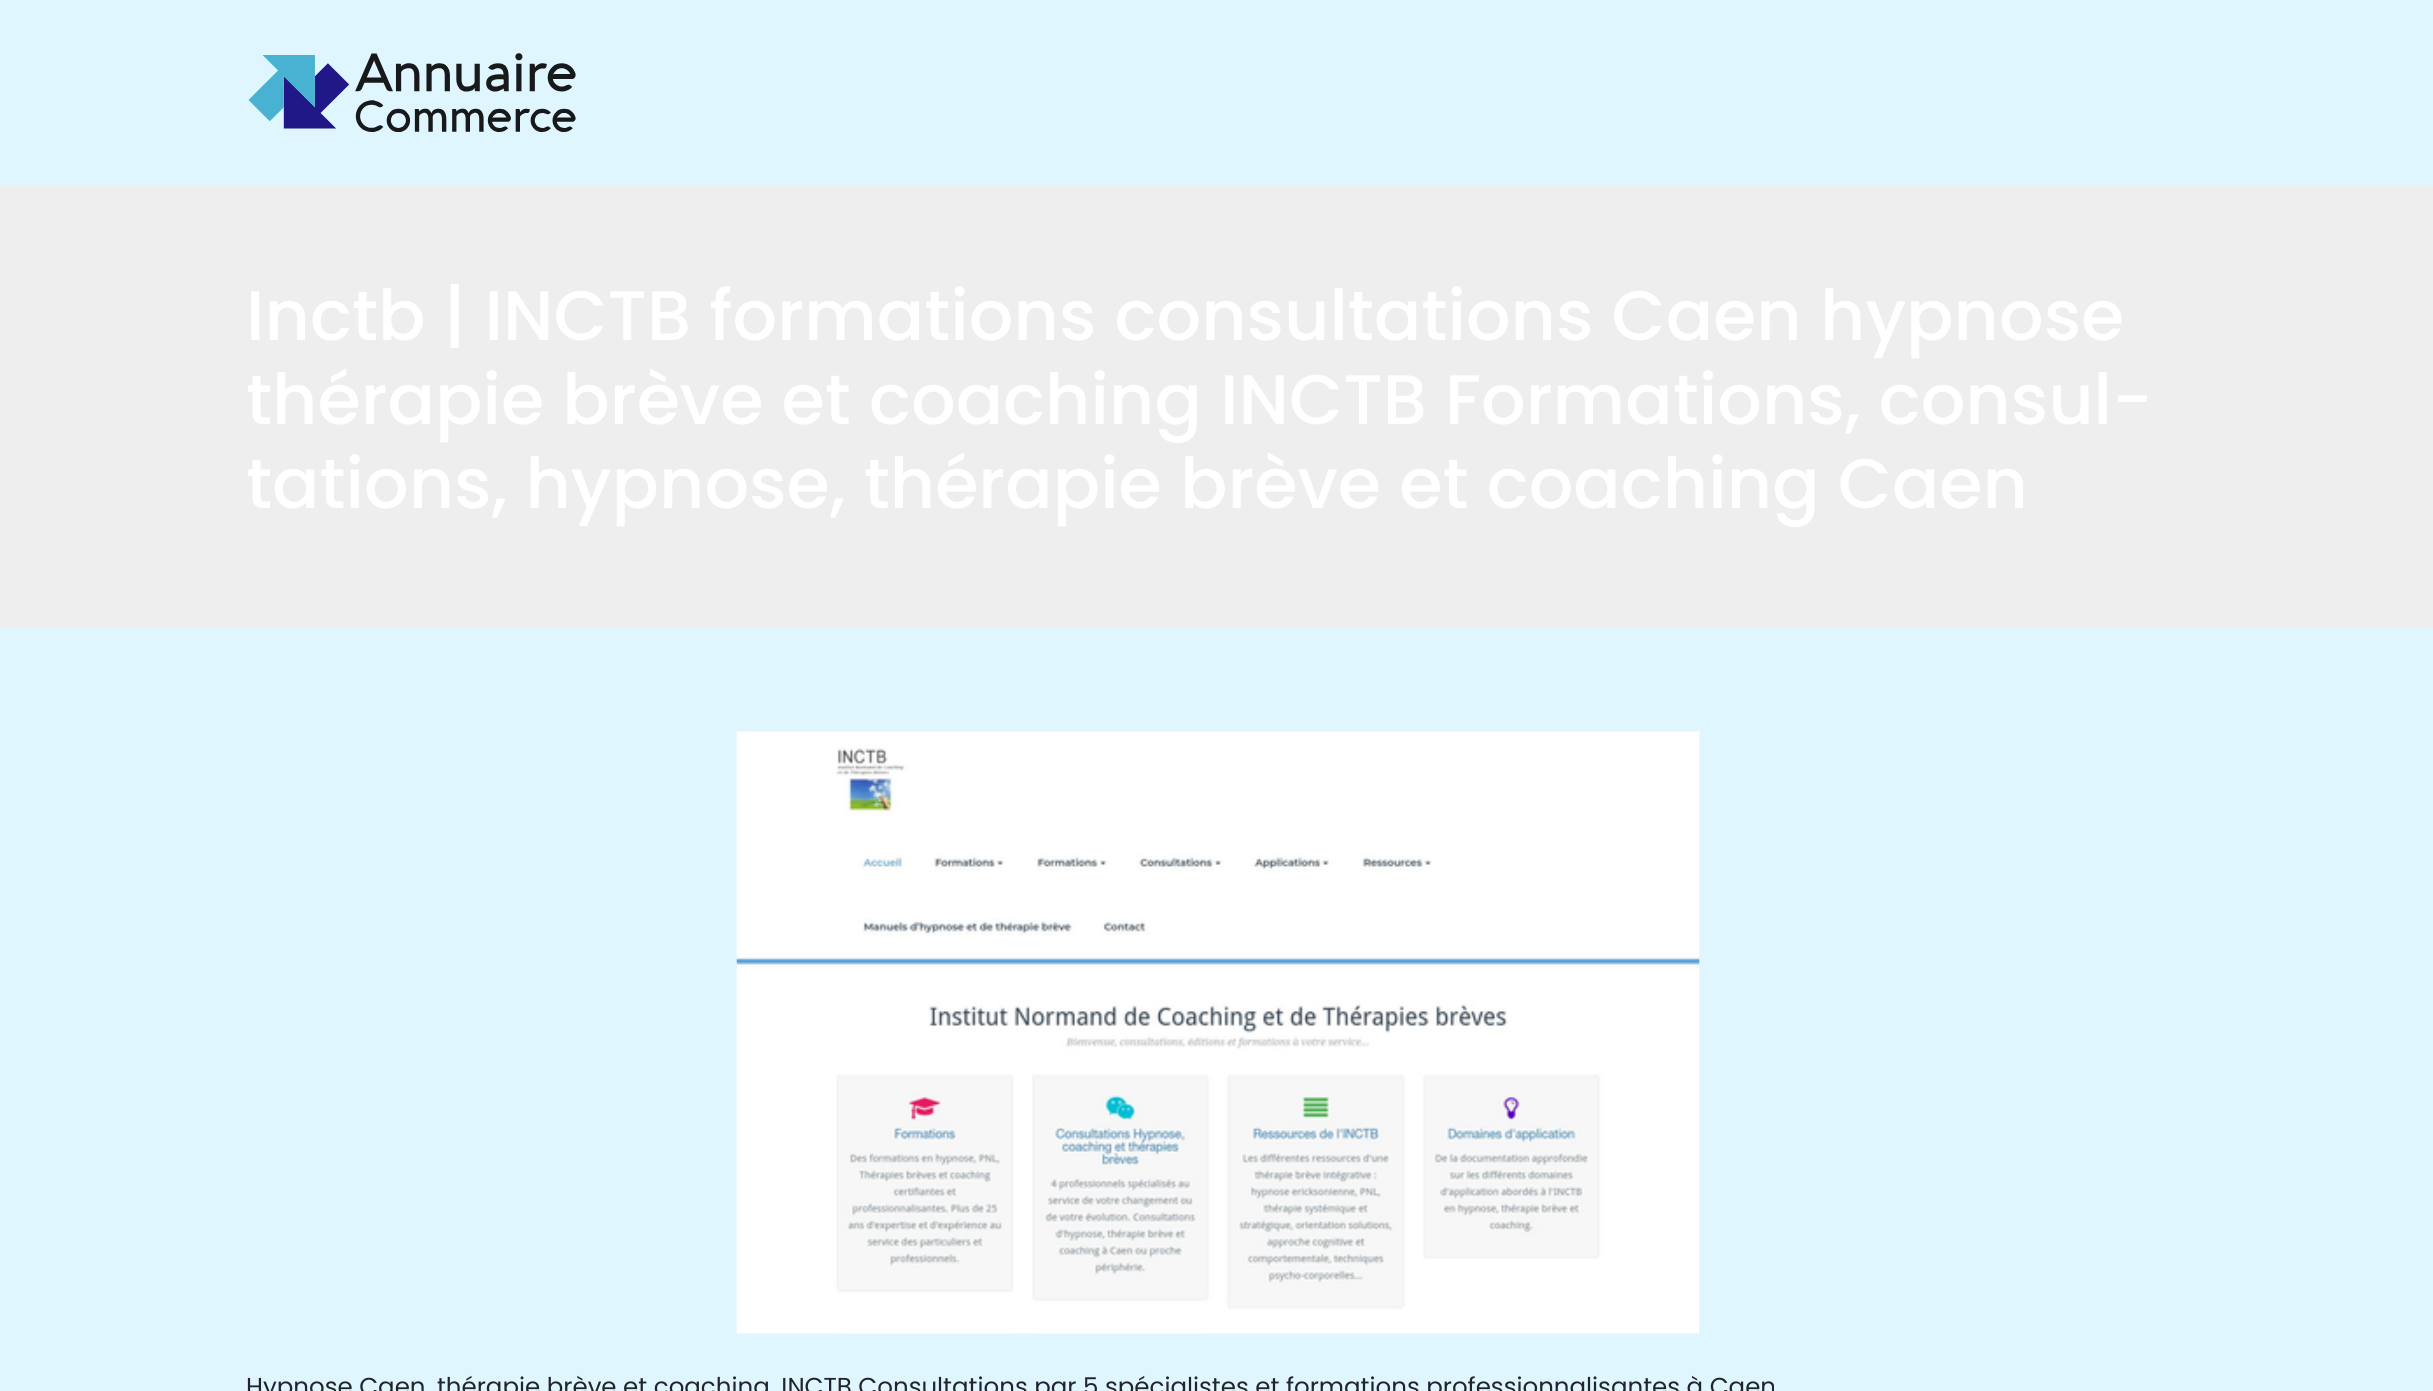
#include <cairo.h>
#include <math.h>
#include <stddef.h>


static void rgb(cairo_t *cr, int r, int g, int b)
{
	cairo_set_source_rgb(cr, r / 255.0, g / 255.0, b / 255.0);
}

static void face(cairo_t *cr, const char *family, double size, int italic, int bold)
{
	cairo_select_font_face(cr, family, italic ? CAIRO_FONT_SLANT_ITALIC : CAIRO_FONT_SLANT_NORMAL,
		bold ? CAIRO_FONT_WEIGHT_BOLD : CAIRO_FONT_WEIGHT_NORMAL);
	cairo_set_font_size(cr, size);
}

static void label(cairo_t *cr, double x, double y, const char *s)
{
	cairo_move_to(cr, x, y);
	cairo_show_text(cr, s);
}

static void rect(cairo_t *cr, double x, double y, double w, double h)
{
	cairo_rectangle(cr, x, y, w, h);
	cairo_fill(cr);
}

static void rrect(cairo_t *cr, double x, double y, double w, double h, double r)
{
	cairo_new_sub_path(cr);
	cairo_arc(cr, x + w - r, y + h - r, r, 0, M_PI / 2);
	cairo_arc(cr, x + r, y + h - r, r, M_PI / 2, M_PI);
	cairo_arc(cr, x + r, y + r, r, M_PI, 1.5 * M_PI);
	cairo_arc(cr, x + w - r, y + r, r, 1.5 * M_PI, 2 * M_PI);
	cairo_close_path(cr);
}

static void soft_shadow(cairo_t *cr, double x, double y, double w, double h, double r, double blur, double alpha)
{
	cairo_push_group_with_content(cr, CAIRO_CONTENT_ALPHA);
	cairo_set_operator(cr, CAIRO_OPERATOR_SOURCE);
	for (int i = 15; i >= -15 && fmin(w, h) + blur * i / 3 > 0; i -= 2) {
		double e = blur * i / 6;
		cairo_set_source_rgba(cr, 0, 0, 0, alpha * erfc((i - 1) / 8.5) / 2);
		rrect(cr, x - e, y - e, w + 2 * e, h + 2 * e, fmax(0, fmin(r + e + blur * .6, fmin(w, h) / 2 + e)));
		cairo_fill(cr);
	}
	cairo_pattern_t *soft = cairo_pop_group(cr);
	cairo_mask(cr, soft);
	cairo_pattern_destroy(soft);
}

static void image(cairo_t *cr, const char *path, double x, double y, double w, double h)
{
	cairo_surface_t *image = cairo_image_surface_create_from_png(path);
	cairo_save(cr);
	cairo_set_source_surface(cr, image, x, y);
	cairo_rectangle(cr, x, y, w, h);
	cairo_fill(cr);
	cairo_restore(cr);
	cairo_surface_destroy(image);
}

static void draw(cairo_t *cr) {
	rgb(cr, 223, 246, 255);
	cairo_paint(cr);
	cairo_save(cr);
	cairo_set_fill_rule(cr, CAIRO_FILL_RULE_EVEN_ODD);
	cairo_new_path(cr);
	cairo_move_to(cr, 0, 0);
	cairo_line_to(cr, 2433, 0);
	cairo_line_to(cr, 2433, 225);
	cairo_line_to(cr, 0, 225);
	cairo_close_path(cr);
	cairo_move_to(cr, 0, 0);
	cairo_line_to(cr, 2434, 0);
	cairo_line_to(cr, 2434, 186);
	cairo_line_to(cr, 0, 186);
	cairo_close_path(cr);
	cairo_clip(cr);
	rgb(cr, 0, 0, 0);
	soft_shadow(cr, 0, 4, 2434, 185, 0, 11.5, 0.1);
	cairo_restore(cr);
	image(cr, "image0.png", 248, 53, 328, 79);
	rgb(cr, 238, 238, 238);
	rect(cr, 0, 186, 2433, 441);
	face(cr, "Poppins Medium", 70, 0, 0);
	rgb(cr, 255, 255, 255);
	label(cr, 246, 340, "Inctb | INCTB formations consultations Caen hypnose");
	label(cr, 246, 424, "thérapie brève et coaching INCTB Formations, consul-");
	label(cr, 246, 508, "tations, hypnose, thérapie brève et coaching Caen");
	image(cr, "image1.png", 736, 731, 964, 603);
	face(cr, "Poppins", 24.5, 0, 0);
	rgb(cr, 33, 37, 41);
	label(cr, 246, 1395, "Hypnose Caen, thérapie brève et coaching. INCTB Consultations par 5 spécialistes et formations professionnalisantes à Caen");
}

int main(void) {
	cairo_surface_t *surface = cairo_image_surface_create(CAIRO_FORMAT_RGB24, 2433, 1391);
	cairo_t *cr = cairo_create(surface);
	cairo_font_options_t *options = cairo_font_options_create();
	cairo_font_options_set_hint_metrics(options, CAIRO_HINT_METRICS_OFF);
	cairo_font_options_set_hint_style(options, CAIRO_HINT_STYLE_NONE);
	cairo_set_font_options(cr, options);
	cairo_set_miter_limit(cr, 4);
	draw(cr);
	cairo_surface_write_to_png(surface, "render.png");
	cairo_font_options_destroy(options);
	cairo_destroy(cr);
	cairo_surface_destroy(surface);
	return 0;
}
